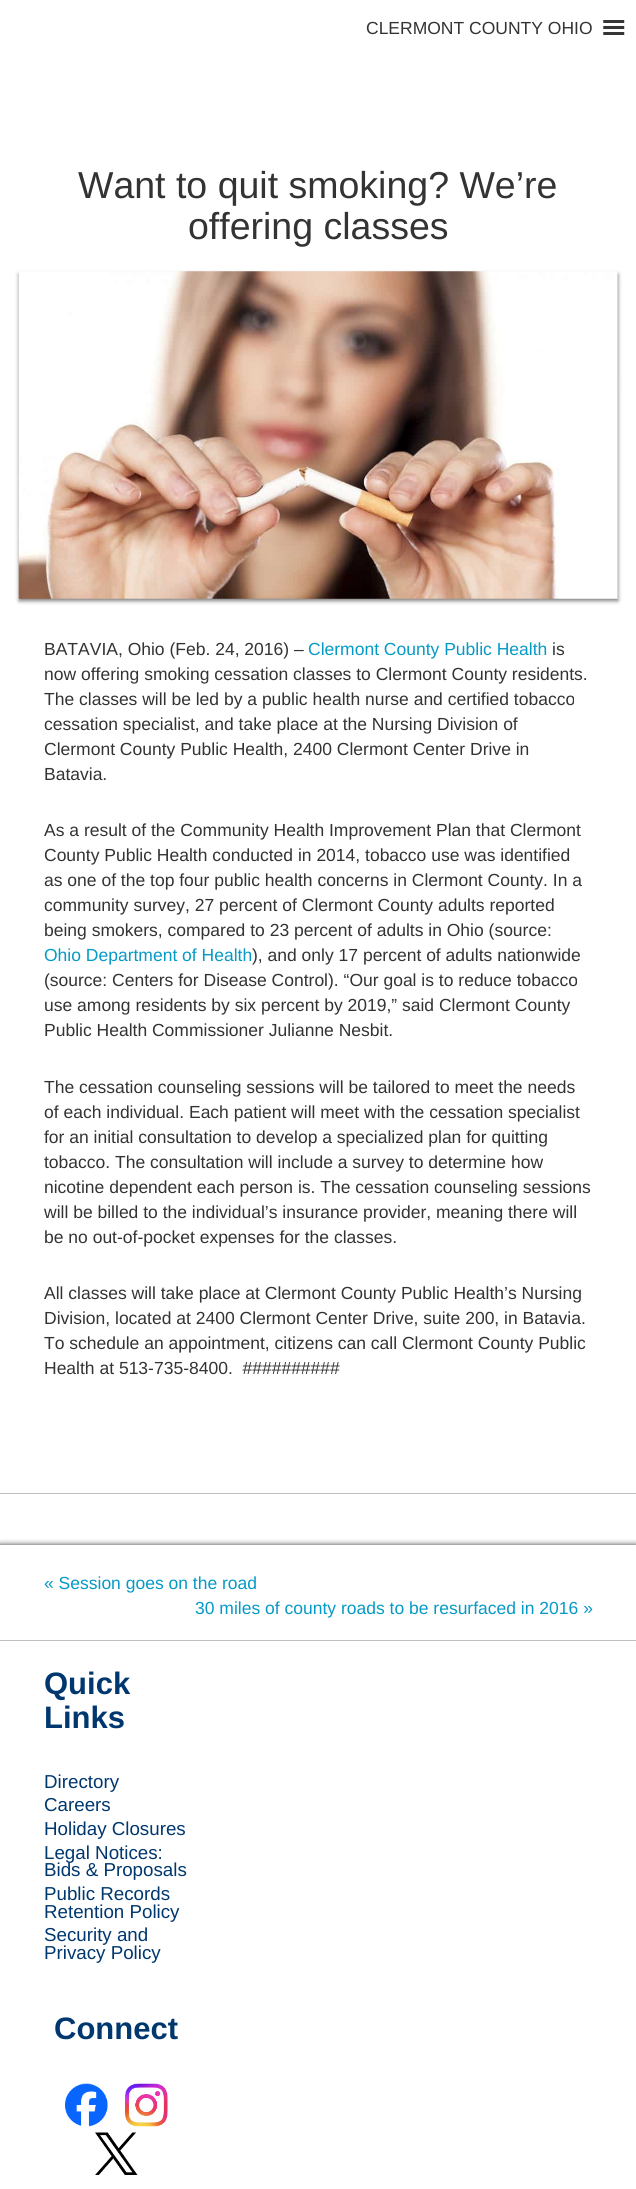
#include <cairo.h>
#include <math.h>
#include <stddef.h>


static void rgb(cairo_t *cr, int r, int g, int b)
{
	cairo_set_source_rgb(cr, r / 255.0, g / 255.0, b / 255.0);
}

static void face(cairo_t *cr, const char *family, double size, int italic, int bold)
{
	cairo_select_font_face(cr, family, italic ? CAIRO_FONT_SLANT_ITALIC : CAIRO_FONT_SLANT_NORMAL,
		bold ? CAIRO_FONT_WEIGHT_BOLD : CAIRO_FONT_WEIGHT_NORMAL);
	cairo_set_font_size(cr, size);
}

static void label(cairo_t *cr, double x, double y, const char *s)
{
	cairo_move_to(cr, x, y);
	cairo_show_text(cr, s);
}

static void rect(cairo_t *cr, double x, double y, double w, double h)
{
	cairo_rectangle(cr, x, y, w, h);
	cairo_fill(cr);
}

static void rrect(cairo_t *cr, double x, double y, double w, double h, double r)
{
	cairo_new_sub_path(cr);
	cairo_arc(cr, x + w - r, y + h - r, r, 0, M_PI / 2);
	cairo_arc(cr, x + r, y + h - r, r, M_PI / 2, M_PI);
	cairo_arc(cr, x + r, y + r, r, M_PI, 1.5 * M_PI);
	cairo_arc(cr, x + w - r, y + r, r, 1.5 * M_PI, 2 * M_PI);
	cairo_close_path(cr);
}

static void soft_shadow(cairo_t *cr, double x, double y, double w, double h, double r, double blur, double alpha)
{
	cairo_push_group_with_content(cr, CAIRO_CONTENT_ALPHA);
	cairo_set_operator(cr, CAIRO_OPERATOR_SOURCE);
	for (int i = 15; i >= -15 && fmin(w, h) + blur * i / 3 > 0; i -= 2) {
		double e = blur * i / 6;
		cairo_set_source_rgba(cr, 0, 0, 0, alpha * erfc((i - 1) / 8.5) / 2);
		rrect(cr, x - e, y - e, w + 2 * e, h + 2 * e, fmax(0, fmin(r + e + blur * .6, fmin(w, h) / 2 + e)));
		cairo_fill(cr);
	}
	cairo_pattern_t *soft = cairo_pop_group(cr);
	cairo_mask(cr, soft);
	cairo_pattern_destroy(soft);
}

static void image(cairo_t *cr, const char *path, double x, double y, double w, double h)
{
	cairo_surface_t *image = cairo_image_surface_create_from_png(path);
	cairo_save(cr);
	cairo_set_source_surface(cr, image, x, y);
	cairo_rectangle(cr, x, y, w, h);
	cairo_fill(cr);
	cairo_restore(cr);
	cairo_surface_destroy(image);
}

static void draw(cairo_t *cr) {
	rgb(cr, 255, 255, 255);
	cairo_paint(cr);
	face(cr, "Liberation Sans", 17.5, 0, 0);
	rgb(cr, 51, 51, 51);
	label(cr, 366, 34, "CLERMONT COUNTY OHIO");
	image(cr, "image0.png", 603, 20, 22, 15);
	face(cr, "Liberation Sans", 37.5, 0, 0);
	label(cr, 78, 198, "Want to quit smoking? We’re");
	label(cr, 188, 239, "offering classes");
	rgb(cr, 128, 128, 128);
	soft_shadow(cr, 19, 274, 599, 327, 0, 2, 1);
	image(cr, "image1.png", 18, 271, 600, 328);
	face(cr, "Liberation Sans", 17.5, 0, 0);
	rgb(cr, 51, 51, 51);
	label(cr, 44, 655, "BATAVIA, Ohio (Feb. 24, 2016) –");
	rgb(cr, 5, 154, 197);
	label(cr, 308, 655, "Clermont County Public Health");
	rgb(cr, 51, 51, 51);
	label(cr, 552, 655, "is");
	label(cr, 44, 680, "now offering smoking cessation classes to Clermont County residents.");
	label(cr, 44, 705, "The classes will be led by a public health nurse and certified tobacco");
	label(cr, 44, 730, "cessation specialist, and take place at the Nursing Division of");
	label(cr, 44, 755, "Clermont County Public Health, 2400 Clermont Center Drive in");
	label(cr, 44, 780, "Batavia.");
	label(cr, 44, 836, "As a result of the Community Health Improvement Plan that Clermont");
	label(cr, 44, 861, "County Public Health conducted in 2014, tobacco use was identified");
	label(cr, 44, 886, "as one of the top four public health concerns in Clermont County. In a");
	label(cr, 44, 911, "community survey, 27 percent of Clermont County adults reported");
	label(cr, 44, 936, "being smokers, compared to 23 percent of adults in Ohio (source:");
	rgb(cr, 5, 154, 197);
	label(cr, 44, 961, "Ohio Department of Health");
	rgb(cr, 51, 51, 51);
	label(cr, 252, 961, "), and only 17 percent of adults nationwide");
	label(cr, 44, 986, "(source: Centers for Disease Control). “Our goal is to reduce tobacco");
	label(cr, 44, 1011, "use among residents by six percent by 2019,” said Clermont County");
	label(cr, 44, 1036, "Public Health Commissioner Julianne Nesbit.");
	label(cr, 44, 1093, "The cessation counseling sessions will be tailored to meet the needs");
	label(cr, 44, 1118, "of each individual. Each patient will meet with the cessation specialist");
	label(cr, 44, 1143, "for an initial consultation to develop a specialized plan for quitting");
	label(cr, 44, 1168, "tobacco. The consultation will include a survey to determine how");
	label(cr, 44, 1193, "nicotine dependent each person is. The cessation counseling sessions");
	label(cr, 44, 1218, "will be billed to the individual’s insurance provider, meaning there will");
	label(cr, 44, 1243, "be no out-of-pocket expenses for the classes.");
	label(cr, 44, 1299, "All classes will take place at Clermont County Public Health’s Nursing");
	label(cr, 44, 1324, "Division, located at 2400 Clermont Center Drive, suite 200, in Batavia.");
	label(cr, 44, 1349, "To schedule an appointment, citizens can call Clermont County Public");
	label(cr, 44, 1374, "Health at 513-735-8400.  ##########");
	rgb(cr, 192, 192, 192);
	rect(cr, 0, 1493, 636, 1);
	cairo_save(cr);
	cairo_rectangle(cr, 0, 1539, 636, 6);
	cairo_clip(cr);
	rgb(cr, 51, 51, 51);
	soft_shadow(cr, 0, 1545, 636, 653, 0, 3, 1);
	cairo_restore(cr);
	rect(cr, 0, 1640, 636, 1);
	rgb(cr, 5, 154, 197);
	label(cr, 44, 1589, "« Session goes on the road");
	label(cr, 195, 1614, "30 miles of county roads to be resurfaced in 2016 »");
	face(cr, "Liberation Sans", 31, 0, 1);
	rgb(cr, 0, 55, 110);
	label(cr, 44, 1694, "Quick");
	label(cr, 44, 1728, "Links");
	face(cr, "Liberation Sans", 18.75, 0, 0);
	label(cr, 44, 1788, "Directory");
	label(cr, 44, 1811, "Careers");
	label(cr, 44, 1835, "Holiday Closures");
	label(cr, 44, 1859, "Legal Notices:");
	label(cr, 44, 1876, "Bids & Proposals");
	label(cr, 44, 1900, "Public Records");
	label(cr, 44, 1918, "Retention Policy");
	label(cr, 44, 1941, "Security and");
	label(cr, 44, 1959, "Privacy Policy");
	face(cr, "Liberation Sans", 31, 0, 1);
	label(cr, 54, 2039, "Connect");
	image(cr, "image2.png", 65, 2083, 43, 44);
	image(cr, "image3.png", 125, 2083, 43, 44);
	image(cr, "image4.png", 95, 2132, 43, 43);
}

int main(void) {
	cairo_surface_t *surface = cairo_image_surface_create(CAIRO_FORMAT_RGB24, 636, 2189);
	cairo_t *cr = cairo_create(surface);
	cairo_font_options_t *options = cairo_font_options_create();
	cairo_font_options_set_hint_metrics(options, CAIRO_HINT_METRICS_OFF);
	cairo_font_options_set_hint_style(options, CAIRO_HINT_STYLE_NONE);
	cairo_set_font_options(cr, options);
	cairo_set_miter_limit(cr, 4);
	draw(cr);
	cairo_surface_write_to_png(surface, "render.png");
	cairo_font_options_destroy(options);
	cairo_destroy(cr);
	cairo_surface_destroy(surface);
	return 0;
}
